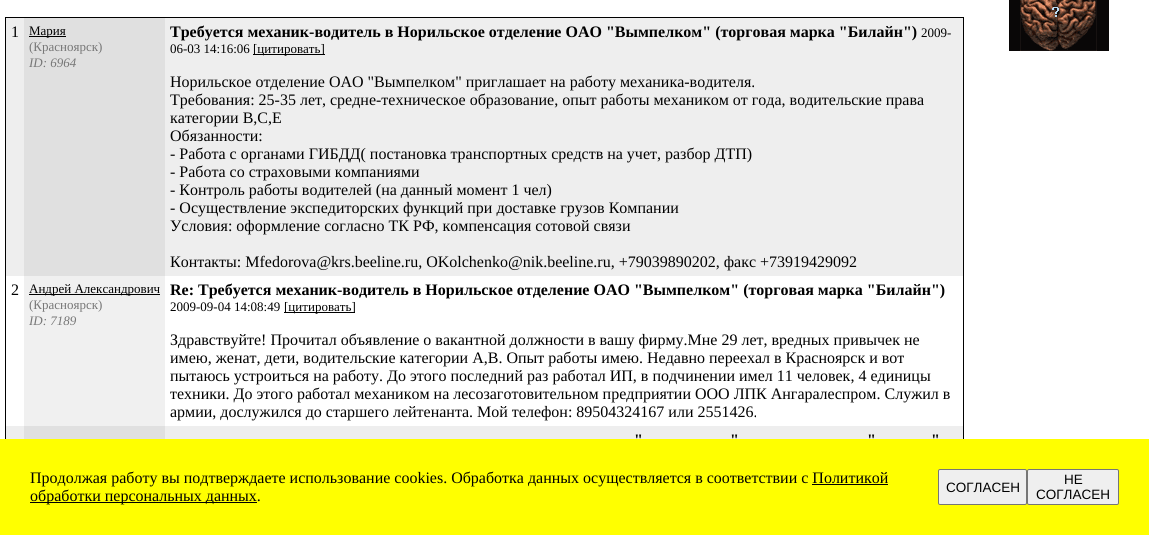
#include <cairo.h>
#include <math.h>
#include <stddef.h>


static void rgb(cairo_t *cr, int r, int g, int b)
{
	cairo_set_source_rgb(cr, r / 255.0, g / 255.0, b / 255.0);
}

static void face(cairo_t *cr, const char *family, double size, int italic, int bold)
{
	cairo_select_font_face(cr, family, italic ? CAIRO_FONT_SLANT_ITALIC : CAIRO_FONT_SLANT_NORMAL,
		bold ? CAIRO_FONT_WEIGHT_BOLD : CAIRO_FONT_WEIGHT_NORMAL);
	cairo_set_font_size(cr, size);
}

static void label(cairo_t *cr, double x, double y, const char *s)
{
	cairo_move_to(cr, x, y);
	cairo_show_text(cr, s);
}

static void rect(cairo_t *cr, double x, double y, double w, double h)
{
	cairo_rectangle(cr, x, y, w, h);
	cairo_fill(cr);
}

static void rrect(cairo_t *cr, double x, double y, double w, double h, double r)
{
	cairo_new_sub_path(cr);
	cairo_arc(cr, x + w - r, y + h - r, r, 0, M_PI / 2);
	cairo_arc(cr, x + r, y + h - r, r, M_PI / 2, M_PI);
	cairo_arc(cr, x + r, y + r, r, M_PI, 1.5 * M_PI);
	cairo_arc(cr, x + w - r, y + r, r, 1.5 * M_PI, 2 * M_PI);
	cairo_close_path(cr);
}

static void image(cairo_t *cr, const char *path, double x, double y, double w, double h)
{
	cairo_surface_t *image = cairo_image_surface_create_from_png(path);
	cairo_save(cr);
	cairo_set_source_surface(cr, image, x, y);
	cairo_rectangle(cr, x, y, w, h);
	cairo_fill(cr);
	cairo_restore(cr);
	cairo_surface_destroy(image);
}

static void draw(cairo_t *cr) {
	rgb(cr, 255, 255, 255);
	cairo_paint(cr);
	rgb(cr, 0, 0, 0);
	rect(cr, 5, 17, 959, 422);
	rgb(cr, 238, 238, 238);
	rect(cr, 6, 18, 957, 258);
	face(cr, "Liberation Serif", 16, 0, 0);
	rgb(cr, 0, 0, 0);
	label(cr, 11, 37, "1");
	rgb(cr, 224, 224, 224);
	rect(cr, 24, 18, 141, 258);
	rgb(cr, 0, 0, 0);
	rect(cr, 29, 36, 37, 1);
	face(cr, "Liberation Serif", 13, 0, 0);
	label(cr, 29, 35, "Мария");
	rgb(cr, 119, 119, 119);
	label(cr, 29, 51, "(Красноярск)");
	face(cr, "Liberation Serif", 13, 1, 0);
	label(cr, 29, 67, "ID: 6964");
	face(cr, "Liberation Serif", 16, 0, 1);
	rgb(cr, 0, 0, 0);
	label(cr, 170, 37, "Требуется механик-водитель в Норильское отделение ОАО \"Вымпелком\" (торговая марка \"Билайн\")");
	face(cr, "Liberation Serif", 13, 0, 0);
	label(cr, 921, 37, "2009-");
	label(cr, 170, 53, "06-03 14:16:06");
	rect(cr, 253, 54, 72, 1);
	label(cr, 253, 53, "[цитировать]");
	face(cr, "Liberation Serif", 16, 0, 0);
	label(cr, 170, 87, "Норильское отделение ОАО \"Вымпелком\" приглашает на работу механика-водителя.");
	label(cr, 170, 105, "Требования: 25-35 лет, средне-техническое образование, опыт работы механиком от года, водительские права");
	label(cr, 170, 123, "категории В,С,Е");
	label(cr, 170, 141, "Обязанности:");
	label(cr, 170, 159, "- Работа с органами ГИБДД( постановка транспортных средств на учет, разбор ДТП)");
	label(cr, 170, 177, "- Работа со страховыми компаниями");
	label(cr, 170, 195, "- Контроль работы водителей (на данный момент 1 чел)");
	label(cr, 170, 213, "- Осуществление экспедиторских функций при доставке грузов Компании");
	label(cr, 170, 231, "Условия: оформление согласно ТК РФ, компенсация сотовой связи");
	label(cr, 170, 267, "Контакты: Mfedorova@krs.beeline.ru, OKolchenko@nik.beeline.ru, +79039890202, факс +73919429092");
	rgb(cr, 255, 255, 255);
	rect(cr, 6, 276, 957, 150);
	rgb(cr, 0, 0, 0);
	label(cr, 11, 295, "2");
	rgb(cr, 240, 240, 240);
	rect(cr, 24, 276, 141, 150);
	rgb(cr, 0, 0, 0);
	rect(cr, 29, 294, 131, 1);
	face(cr, "Liberation Serif", 13, 0, 0);
	label(cr, 29, 293, "Андрей Александрович");
	rgb(cr, 119, 119, 119);
	label(cr, 29, 309, "(Красноярск)");
	face(cr, "Liberation Serif", 13, 1, 0);
	label(cr, 29, 325, "ID: 7189");
	face(cr, "Liberation Serif", 16, 0, 1);
	rgb(cr, 0, 0, 0);
	label(cr, 170, 295, "Re: Требуется механик-водитель в Норильское отделение ОАО \"Вымпелком\" (торговая марка \"Билайн\")");
	face(cr, "Liberation Serif", 13, 0, 0);
	label(cr, 170, 311, "2009-09-04 14:08:49");
	rect(cr, 284, 312, 71, 1);
	label(cr, 284, 311, "[цитировать]");
	face(cr, "Liberation Serif", 16, 0, 0);
	label(cr, 170, 345, "Здравствуйте! Прочитал объявление о вакантной должности в вашу фирму.Мне 29 лет, вредных привычек не");
	label(cr, 170, 363, "имею, женат, дети, водительские категории А,В. Опыт работы имею. Недавно переехал в Красноярск и вот");
	label(cr, 170, 381, "пытаюсь устроиться на работу. До этого последний раз работал ИП, в подчинении имел 11 человек, 4 единицы");
	label(cr, 170, 399, "техники. До этого работал механиком на лесозаготовительном предприятии ООО ЛПК Ангаралеспром. Служил в");
	label(cr, 170, 417, "армии, дослужился до старшего лейтенанта. Мой телефон: 89504324167 или 2551426.");
	rgb(cr, 238, 238, 238);
	rect(cr, 6, 426, 957, 13);
	rgb(cr, 224, 224, 224);
	rect(cr, 24, 426, 141, 13);
	face(cr, "Liberation Serif", 16, 0, 1);
	rgb(cr, 0, 0, 0);
	label(cr, 634, 445, "\"");
	label(cr, 730, 445, "\"");
	label(cr, 867, 445, "\"");
	label(cr, 931, 445, "\"");
	image(cr, "image0.png", 1009, 0, 100, 51);
	rgb(cr, 255, 255, 0);
	rect(cr, 0, 439, 1149, 96);
	face(cr, "Liberation Serif", 16, 0, 0);
	rgb(cr, 0, 0, 0);
	label(cr, 30, 483, "Продолжая работу вы подтверждаете использование сооkiеѕ. Обработка данных осуществляется в соответствии с Политикой");
	rect(cr, 30, 502, 227, 1);
	label(cr, 30, 501, "обработки персональных данных.");
	rect(cr, 812, 484, 76, 1);
	rgb(cr, 239, 239, 239);
	rrect(cr, 938.5, 469.5, 88, 35, 1.5);
	cairo_fill_preserve(cr);
	rgb(cr, 118, 118, 118);
	cairo_set_line_width(cr, 1);
	cairo_stroke(cr);
	face(cr, "Liberation Sans", 13.5, 0, 0);
	rgb(cr, 0, 0, 0);
	label(cr, 946, 492, "СОГЛАСЕН");
	rgb(cr, 239, 239, 239);
	rrect(cr, 1027.5, 469.5, 91, 35, 1.5);
	cairo_fill_preserve(cr);
	rgb(cr, 118, 118, 118);
	cairo_stroke(cr);
	rgb(cr, 0, 0, 0);
	label(cr, 1064, 484, "НЕ");
	label(cr, 1036, 499, "СОГЛАСЕН");
}

int main(void) {
	cairo_surface_t *surface = cairo_image_surface_create(CAIRO_FORMAT_RGB24, 1149, 535);
	cairo_t *cr = cairo_create(surface);
	cairo_font_options_t *options = cairo_font_options_create();
	cairo_font_options_set_hint_metrics(options, CAIRO_HINT_METRICS_OFF);
	cairo_font_options_set_hint_style(options, CAIRO_HINT_STYLE_NONE);
	cairo_set_font_options(cr, options);
	cairo_set_miter_limit(cr, 4);
	draw(cr);
	cairo_surface_write_to_png(surface, "render.png");
	cairo_font_options_destroy(options);
	cairo_destroy(cr);
	cairo_surface_destroy(surface);
	return 0;
}
